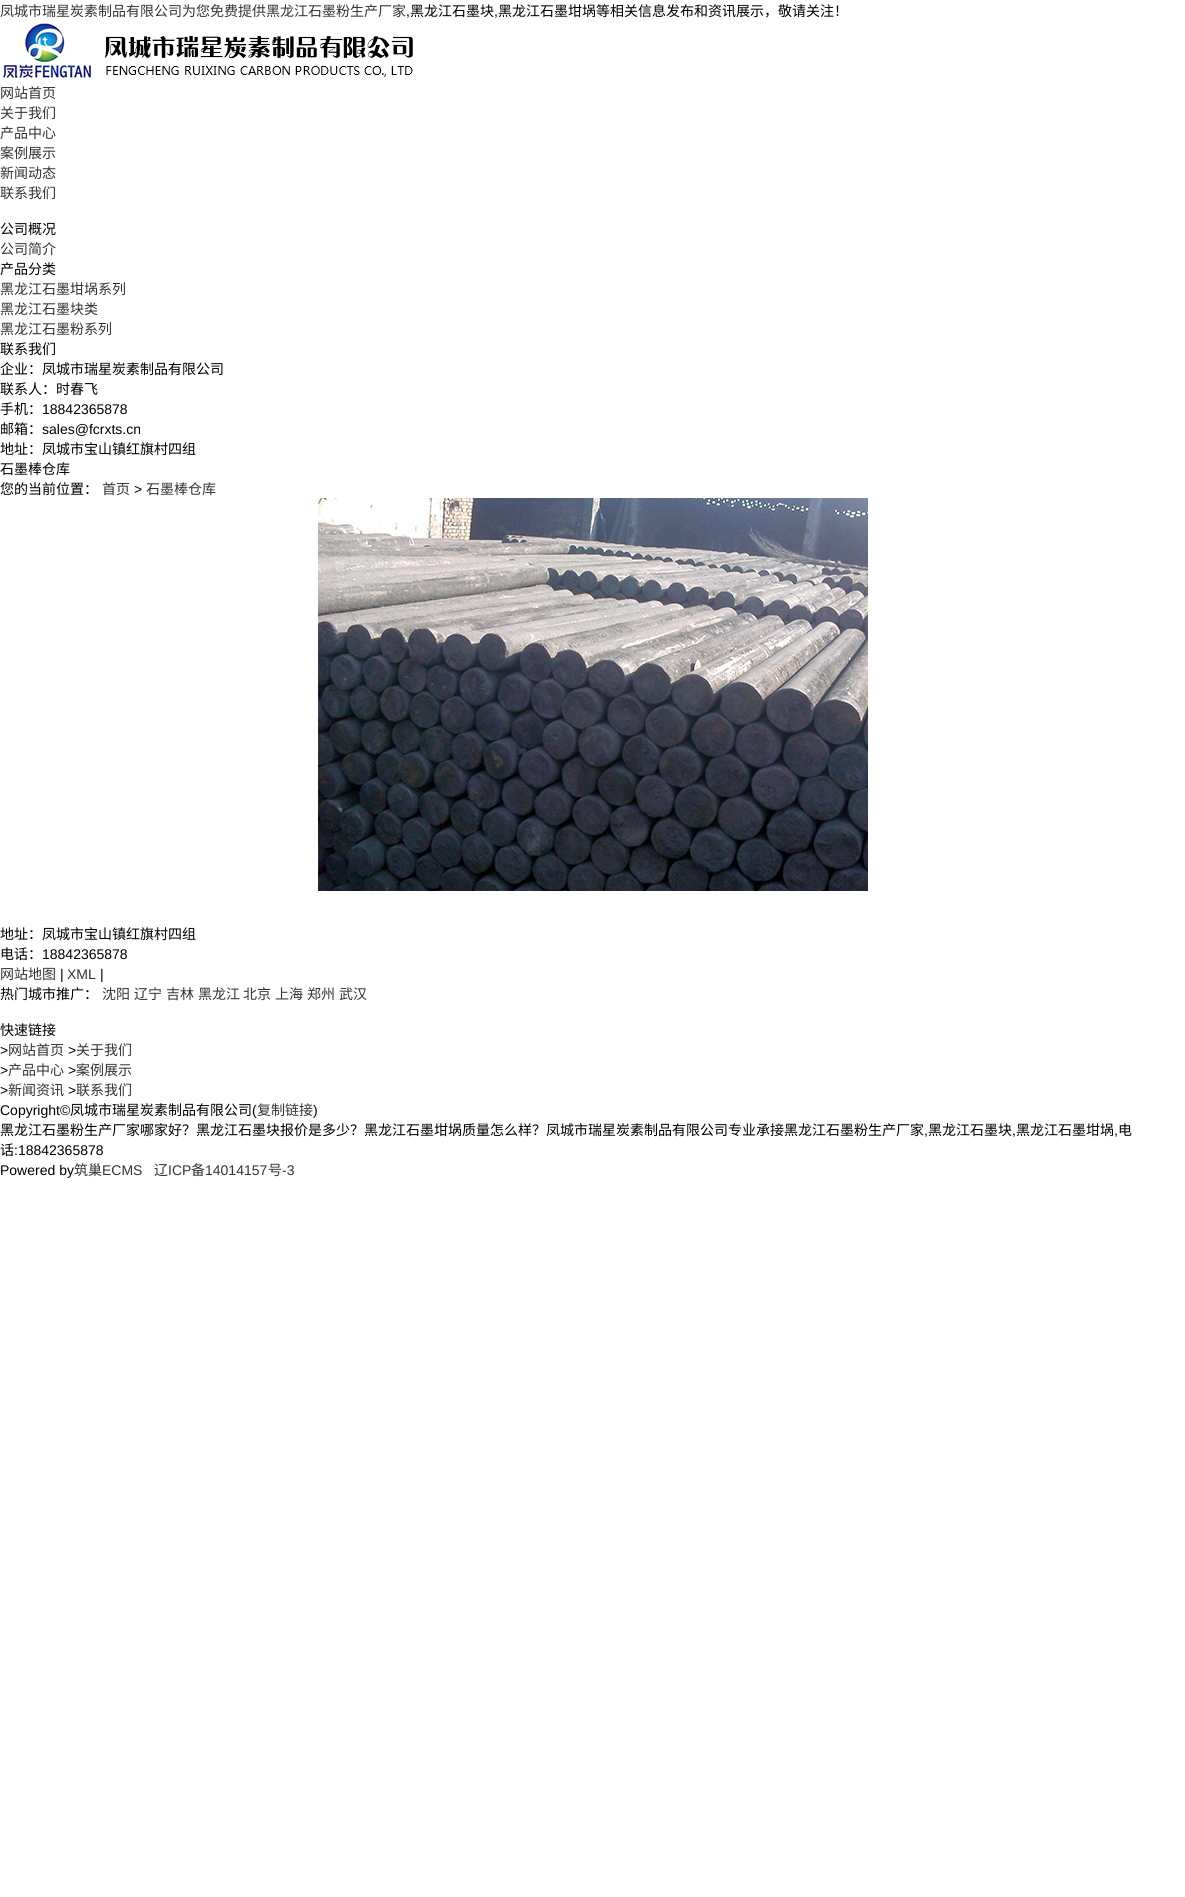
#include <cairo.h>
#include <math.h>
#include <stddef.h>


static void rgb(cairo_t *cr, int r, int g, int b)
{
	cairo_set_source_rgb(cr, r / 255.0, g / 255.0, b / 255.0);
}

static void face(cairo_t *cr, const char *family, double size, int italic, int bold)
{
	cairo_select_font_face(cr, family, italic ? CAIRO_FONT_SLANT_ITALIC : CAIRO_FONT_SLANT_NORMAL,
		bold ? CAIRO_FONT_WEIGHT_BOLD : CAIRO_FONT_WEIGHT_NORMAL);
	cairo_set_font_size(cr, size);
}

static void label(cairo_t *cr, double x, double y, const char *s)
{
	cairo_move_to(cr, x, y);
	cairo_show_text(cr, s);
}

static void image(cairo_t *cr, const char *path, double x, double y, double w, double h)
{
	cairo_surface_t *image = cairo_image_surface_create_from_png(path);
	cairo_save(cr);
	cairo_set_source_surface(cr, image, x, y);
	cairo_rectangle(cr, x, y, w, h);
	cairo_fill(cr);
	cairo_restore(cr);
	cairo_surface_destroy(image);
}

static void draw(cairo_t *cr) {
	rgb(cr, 255, 255, 255);
	cairo_paint(cr);
	face(cr, "Noto Sans CJK SC", 14, 0, 0);
	rgb(cr, 51, 51, 51);
	label(cr, 0, 16, "凤城市瑞星炭素制品有限公司为您免费提供黑龙江石墨粉生产厂家");
	face(cr, "Liberation Sans", 14, 0, 0);
	rgb(cr, 0, 0, 0);
	label(cr, 406, 16, ",");
	face(cr, "Noto Sans CJK SC", 14, 0, 0);
	label(cr, 410, 16, "黑龙江石墨块");
	face(cr, "Liberation Sans", 14, 0, 0);
	label(cr, 494, 16, ",");
	face(cr, "Noto Sans CJK SC", 14, 0, 0);
	label(cr, 498, 16, "黑龙江石墨坩埚等相关信息发布和资讯展示，敬请关注！");
	image(cr, "image0.png", 1, 20, 412, 62);
	rgb(cr, 51, 51, 51);
	label(cr, 0, 98, "网站首页");
	label(cr, 0, 118, "关于我们");
	label(cr, 0, 138, "产品中心");
	label(cr, 0, 158, "案例展示");
	label(cr, 0, 178, "新闻动态");
	label(cr, 0, 198, "联系我们");
	rgb(cr, 0, 0, 0);
	label(cr, 0, 234, "公司概况");
	rgb(cr, 51, 51, 51);
	label(cr, 0, 254, "公司简介");
	rgb(cr, 0, 0, 0);
	label(cr, 0, 274, "产品分类");
	rgb(cr, 51, 51, 51);
	label(cr, 0, 294, "黑龙江石墨坩埚系列");
	label(cr, 0, 314, "黑龙江石墨块类");
	label(cr, 0, 334, "黑龙江石墨粉系列");
	rgb(cr, 0, 0, 0);
	label(cr, 0, 354, "联系我们");
	label(cr, 0, 374, "企业：凤城市瑞星炭素制品有限公司");
	label(cr, 0, 394, "联系人：时春飞");
	label(cr, 0, 414, "手机：");
	face(cr, "Liberation Sans", 14, 0, 0);
	label(cr, 42, 414, "18842365878");
	face(cr, "Noto Sans CJK SC", 14, 0, 0);
	label(cr, 0, 434, "邮箱：");
	face(cr, "Liberation Sans", 14, 0, 0);
	label(cr, 42, 434, "sales@fcrxts.cn");
	face(cr, "Noto Sans CJK SC", 14, 0, 0);
	label(cr, 0, 454, "地址：凤城市宝山镇红旗村四组");
	label(cr, 0, 474, "石墨棒仓库");
	label(cr, 0, 494, "您的当前位置：");
	rgb(cr, 51, 51, 51);
	label(cr, 102, 494, "首页");
	face(cr, "Liberation Sans", 14, 0, 0);
	rgb(cr, 0, 0, 0);
	label(cr, 134, 494, ">");
	face(cr, "Noto Sans CJK SC", 14, 0, 0);
	rgb(cr, 51, 51, 51);
	label(cr, 146, 494, "石墨棒仓库");
	image(cr, "image1.png", 318, 498, 550, 393);
	rgb(cr, 0, 0, 0);
	label(cr, 0, 939, "地址：凤城市宝山镇红旗村四组");
	label(cr, 0, 959, "电话：");
	face(cr, "Liberation Sans", 14, 0, 0);
	label(cr, 42, 959, "18842365878");
	face(cr, "Noto Sans CJK SC", 14, 0, 0);
	rgb(cr, 51, 51, 51);
	label(cr, 0, 979, "网站地图");
	face(cr, "Liberation Sans", 14, 0, 0);
	rgb(cr, 0, 0, 0);
	label(cr, 60, 979, "|");
	rgb(cr, 51, 51, 51);
	label(cr, 67, 979, "XML");
	rgb(cr, 0, 0, 0);
	label(cr, 100, 979, "|");
	face(cr, "Noto Sans CJK SC", 14, 0, 0);
	label(cr, 0, 999, "热门城市推广：");
	rgb(cr, 51, 51, 51);
	label(cr, 102, 999, "沈阳");
	label(cr, 134, 999, "辽宁");
	label(cr, 166, 999, "吉林");
	label(cr, 198, 999, "黑龙江");
	label(cr, 243, 999, "北京");
	label(cr, 275, 999, "上海");
	label(cr, 307, 999, "郑州");
	label(cr, 339, 999, "武汉");
	rgb(cr, 0, 0, 0);
	label(cr, 0, 1035, "快速链接");
	face(cr, "Liberation Sans", 14, 0, 0);
	label(cr, 0, 1055, ">");
	face(cr, "Noto Sans CJK SC", 14, 0, 0);
	rgb(cr, 51, 51, 51);
	label(cr, 8, 1055, "网站首页");
	face(cr, "Liberation Sans", 14, 0, 0);
	rgb(cr, 0, 0, 0);
	label(cr, 68, 1055, ">");
	face(cr, "Noto Sans CJK SC", 14, 0, 0);
	rgb(cr, 51, 51, 51);
	label(cr, 76, 1055, "关于我们");
	face(cr, "Liberation Sans", 14, 0, 0);
	rgb(cr, 0, 0, 0);
	label(cr, 0, 1075, ">");
	face(cr, "Noto Sans CJK SC", 14, 0, 0);
	rgb(cr, 51, 51, 51);
	label(cr, 8, 1075, "产品中心");
	face(cr, "Liberation Sans", 14, 0, 0);
	rgb(cr, 0, 0, 0);
	label(cr, 68, 1075, ">");
	face(cr, "Noto Sans CJK SC", 14, 0, 0);
	rgb(cr, 51, 51, 51);
	label(cr, 76, 1075, "案例展示");
	face(cr, "Liberation Sans", 14, 0, 0);
	rgb(cr, 0, 0, 0);
	label(cr, 0, 1095, ">");
	face(cr, "Noto Sans CJK SC", 14, 0, 0);
	rgb(cr, 51, 51, 51);
	label(cr, 8, 1095, "新闻资讯");
	face(cr, "Liberation Sans", 14, 0, 0);
	rgb(cr, 0, 0, 0);
	label(cr, 68, 1095, ">");
	face(cr, "Noto Sans CJK SC", 14, 0, 0);
	rgb(cr, 51, 51, 51);
	label(cr, 76, 1095, "联系我们");
	face(cr, "Liberation Sans", 14, 0, 0);
	rgb(cr, 0, 0, 0);
	label(cr, 0, 1115, "Copyright©");
	face(cr, "Noto Sans CJK SC", 14, 0, 0);
	label(cr, 70, 1115, "凤城市瑞星炭素制品有限公司");
	face(cr, "Liberation Sans", 14, 0, 0);
	label(cr, 252, 1115, "(");
	face(cr, "Noto Sans CJK SC", 14, 0, 0);
	rgb(cr, 51, 51, 51);
	label(cr, 257, 1115, "复制链接");
	face(cr, "Liberation Sans", 14, 0, 0);
	rgb(cr, 0, 0, 0);
	label(cr, 313, 1115, ")");
	face(cr, "Noto Sans CJK SC", 14, 0, 0);
	label(cr, 0, 1135, "黑龙江石墨粉生产厂家哪家好？黑龙江石墨块报价是多少？黑龙江石墨坩埚质量怎么样？凤城市瑞星炭素制品有限公司专业承接黑龙江石墨粉生产厂家");
	face(cr, "Liberation Sans", 14, 0, 0);
	label(cr, 924, 1135, ",");
	face(cr, "Noto Sans CJK SC", 14, 0, 0);
	label(cr, 928, 1135, "黑龙江石墨块");
	face(cr, "Liberation Sans", 14, 0, 0);
	label(cr, 1012, 1135, ",");
	face(cr, "Noto Sans CJK SC", 14, 0, 0);
	label(cr, 1016, 1135, "黑龙江石墨坩埚");
	face(cr, "Liberation Sans", 14, 0, 0);
	label(cr, 1114, 1135, ",");
	face(cr, "Noto Sans CJK SC", 14, 0, 0);
	label(cr, 1118, 1135, "电");
	label(cr, 0, 1155, "话");
	face(cr, "Liberation Sans", 14, 0, 0);
	label(cr, 14, 1155, ":18842365878");
	label(cr, 0, 1175, "Powered by");
	face(cr, "Noto Sans CJK SC", 14, 0, 0);
	rgb(cr, 51, 51, 51);
	label(cr, 74, 1175, "筑巢");
	face(cr, "Liberation Sans", 14, 0, 0);
	label(cr, 102, 1175, "ECMS");
	face(cr, "Noto Sans CJK SC", 14, 0, 0);
	label(cr, 154, 1175, "辽");
	face(cr, "Liberation Sans", 14, 0, 0);
	label(cr, 168, 1175, "ICP");
	face(cr, "Noto Sans CJK SC", 14, 0, 0);
	label(cr, 191, 1175, "备");
	face(cr, "Liberation Sans", 14, 0, 0);
	label(cr, 205, 1175, "14014157");
	face(cr, "Noto Sans CJK SC", 14, 0, 0);
	label(cr, 268, 1175, "号");
	face(cr, "Liberation Sans", 14, 0, 0);
	label(cr, 282, 1175, "-3");
}

int main(void) {
	cairo_surface_t *surface = cairo_image_surface_create(CAIRO_FORMAT_RGB24, 1185, 1897);
	cairo_t *cr = cairo_create(surface);
	cairo_font_options_t *options = cairo_font_options_create();
	cairo_font_options_set_hint_metrics(options, CAIRO_HINT_METRICS_OFF);
	cairo_font_options_set_hint_style(options, CAIRO_HINT_STYLE_NONE);
	cairo_set_font_options(cr, options);
	cairo_set_miter_limit(cr, 4);
	draw(cr);
	cairo_surface_write_to_png(surface, "render.png");
	cairo_font_options_destroy(options);
	cairo_destroy(cr);
	cairo_surface_destroy(surface);
	return 0;
}
